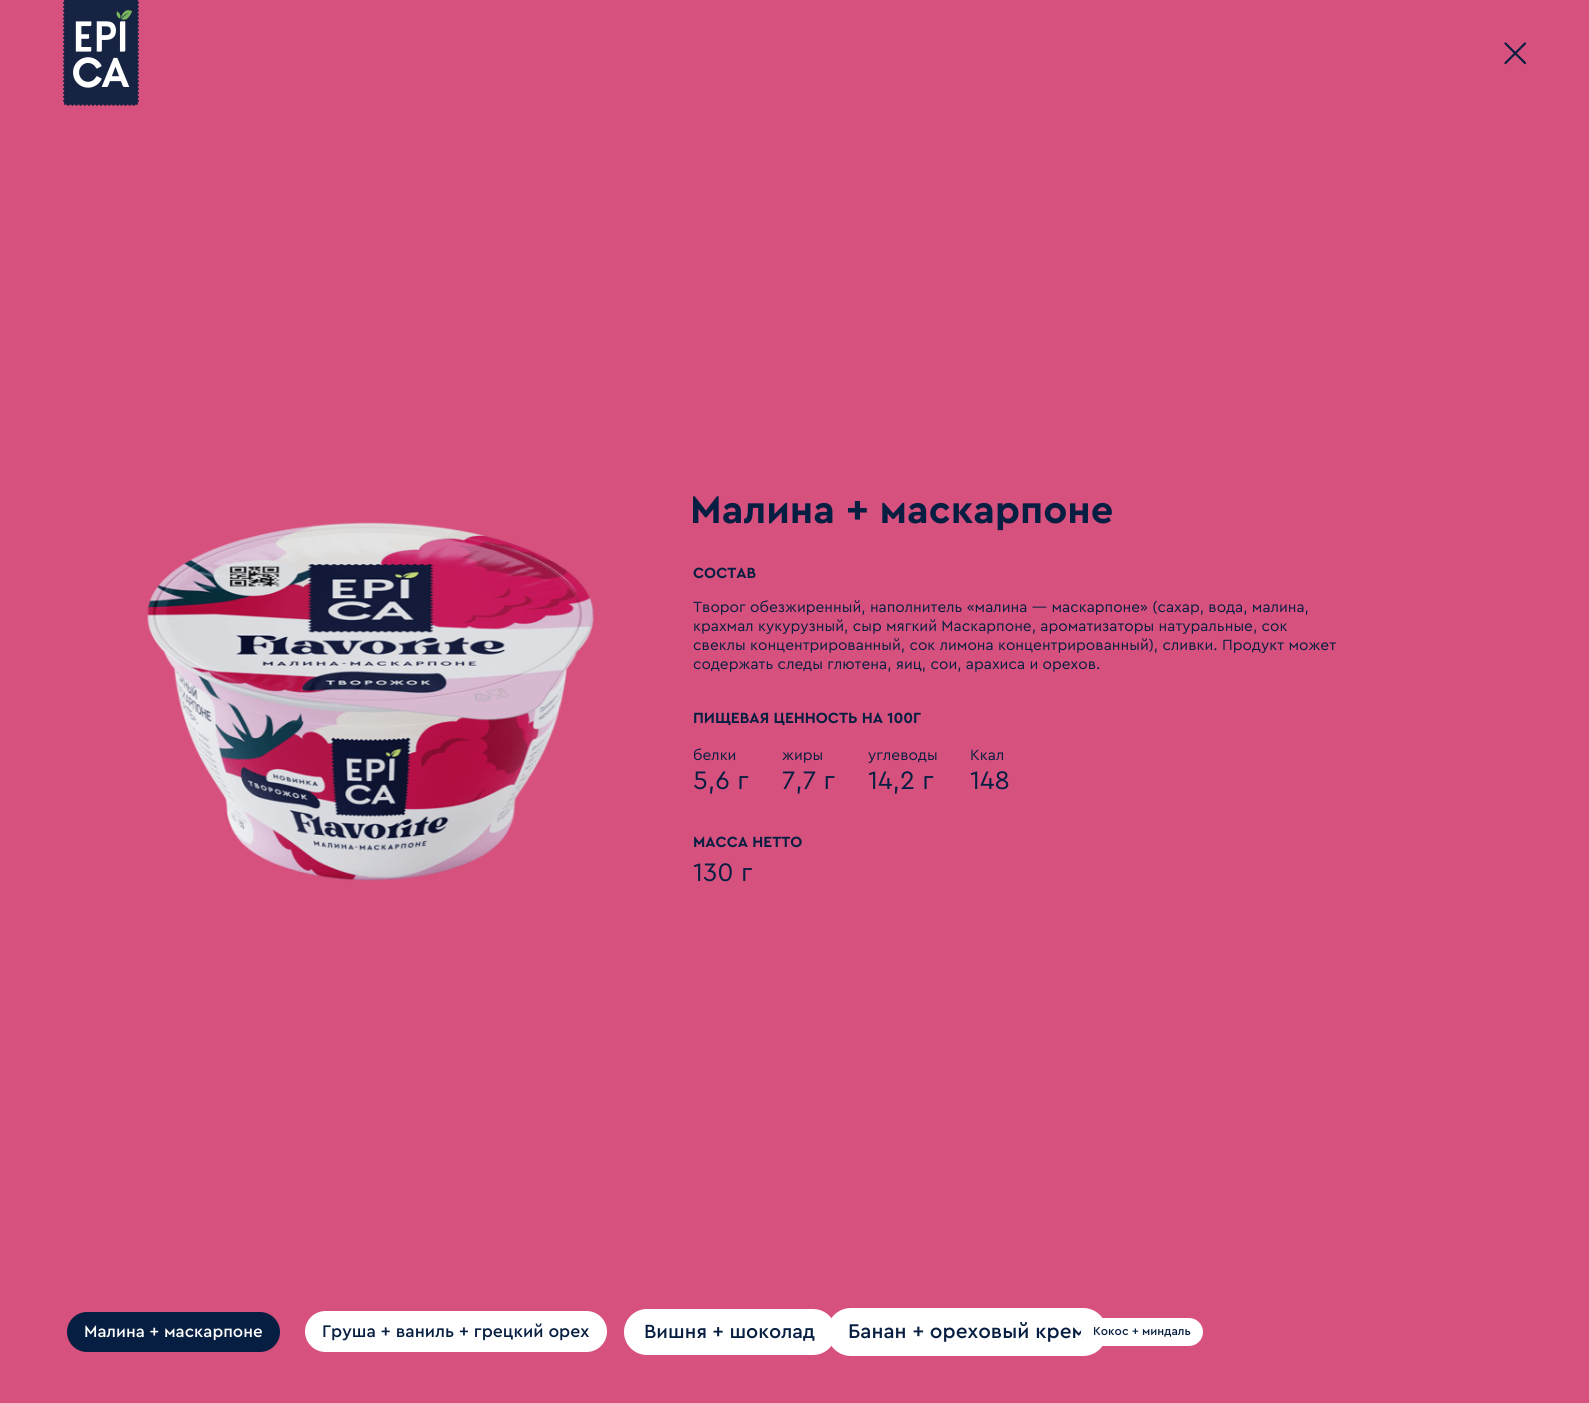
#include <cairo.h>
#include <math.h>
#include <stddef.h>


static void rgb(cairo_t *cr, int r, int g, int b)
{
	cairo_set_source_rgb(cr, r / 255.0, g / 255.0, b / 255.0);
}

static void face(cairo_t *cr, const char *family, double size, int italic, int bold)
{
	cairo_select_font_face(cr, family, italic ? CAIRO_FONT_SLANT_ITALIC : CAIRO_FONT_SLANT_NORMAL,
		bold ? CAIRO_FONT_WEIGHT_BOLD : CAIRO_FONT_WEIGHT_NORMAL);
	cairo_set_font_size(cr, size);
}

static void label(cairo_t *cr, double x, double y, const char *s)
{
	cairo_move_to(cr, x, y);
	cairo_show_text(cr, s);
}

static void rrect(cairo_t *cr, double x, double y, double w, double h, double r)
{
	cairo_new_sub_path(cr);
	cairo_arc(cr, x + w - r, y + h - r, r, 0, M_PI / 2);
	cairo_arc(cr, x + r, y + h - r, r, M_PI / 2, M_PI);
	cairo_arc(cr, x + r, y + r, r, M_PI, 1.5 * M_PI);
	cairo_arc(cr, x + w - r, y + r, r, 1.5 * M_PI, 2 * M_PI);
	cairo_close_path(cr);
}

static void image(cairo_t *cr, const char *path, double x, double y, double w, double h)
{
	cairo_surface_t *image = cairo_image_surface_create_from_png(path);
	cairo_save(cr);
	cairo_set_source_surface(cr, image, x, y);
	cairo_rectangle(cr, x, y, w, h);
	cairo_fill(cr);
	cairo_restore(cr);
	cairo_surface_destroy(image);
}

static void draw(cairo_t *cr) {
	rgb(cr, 214, 81, 126);
	cairo_paint(cr);
	image(cr, "image0.png", 63, 0, 76, 106);
	cairo_new_path(cr);
	cairo_move_to(cr, 1525, 43.5);
	cairo_line_to(cr, 1505.5, 63);
	cairo_move_to(cr, 1505.5, 43.5);
	cairo_line_to(cr, 1525, 63);
	rgb(cr, 6, 30, 65);
	cairo_set_line_width(cr, 2.2);
	cairo_set_line_cap(cr, CAIRO_LINE_CAP_ROUND);
	cairo_set_line_join(cr, CAIRO_LINE_JOIN_ROUND);
	cairo_stroke(cr);
	image(cr, "image1.png", 147, 522, 447, 359);
	face(cr, "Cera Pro", 39.75, 0, 1);
	label(cr, 690, 523, "Малина + маскарпоне");
	face(cr, "Cera Pro", 15.45, 0, 1);
	label(cr, 693, 578, "СОСТАВ");
	face(cr, "Cera Pro", 15.45, 0, 0);
	label(cr, 693, 612, "Творог обезжиренный, наполнитель «малина — маскарпоне» (сахар, вода, малина,");
	label(cr, 693, 631, "крахмал кукурузный, сыр мягкий Маскарпоне, ароматизаторы натуральные, сок");
	label(cr, 693, 650, "свеклы концентрированный, сок лимона концентрированный), сливки. Продукт может");
	label(cr, 693, 669, "содержать следы глютена, яиц, сои, арахиса и орехов.");
	face(cr, "Cera Pro", 15.45, 0, 1);
	label(cr, 693, 723, "ПИЩЕВАЯ ЦЕННОСТЬ НА 100Г");
	face(cr, "Cera Pro", 15.45, 0, 0);
	label(cr, 693, 760, "белки");
	face(cr, "Cera Pro", 26.5, 0, 0);
	label(cr, 693, 789, "5,6 г");
	face(cr, "Cera Pro", 15.45, 0, 0);
	label(cr, 782, 760, "жиры");
	face(cr, "Cera Pro", 26.5, 0, 0);
	label(cr, 782, 789, "7,7 г");
	face(cr, "Cera Pro", 15.45, 0, 0);
	label(cr, 868, 760, "углеводы");
	face(cr, "Cera Pro", 26.5, 0, 0);
	label(cr, 868, 789, "14,2 г");
	face(cr, "Cera Pro", 15.45, 0, 0);
	label(cr, 970, 760, "Ккал");
	face(cr, "Cera Pro", 26.5, 0, 0);
	label(cr, 970, 789, "148");
	face(cr, "Cera Pro", 15.45, 0, 1);
	label(cr, 693, 847, "МАССА НЕТТО");
	face(cr, "Cera Pro", 26.5, 0, 0);
	label(cr, 693, 881, "130 г");
	rrect(cr, 67, 1312, 213, 40, 20);
	cairo_fill(cr);
	face(cr, "Cera Pro Medium", 17, 0, 0);
	rgb(cr, 255, 255, 255);
	label(cr, 84, 1337, "Малина + маскарпоне");
	rrect(cr, 305, 1311, 302, 41, 20.5);
	cairo_fill(cr);
	face(cr, "Cera Pro Medium", 17.6, 0, 0);
	rgb(cr, 6, 30, 65);
	label(cr, 322, 1337, "Груша + ваниль + грецкий орех");
	rgb(cr, 255, 255, 255);
	rrect(cr, 624, 1309, 212, 46, 23);
	cairo_fill(cr);
	face(cr, "Cera Pro Medium", 20, 0, 0);
	rgb(cr, 6, 30, 65);
	label(cr, 644, 1338, "Вишня + шоколад");
	rgb(cr, 255, 255, 255);
	rrect(cr, 827, 1308, 280, 48, 24);
	cairo_fill(cr);
	face(cr, "Cera Pro Medium", 20.8, 0, 0);
	rgb(cr, 6, 30, 65);
	label(cr, 848, 1338, "Банан + ореховый крем");
	rgb(cr, 255, 255, 255);
	rrect(cr, 1081, 1318, 122, 28, 14);
	cairo_fill(cr);
	face(cr, "Cera Pro Medium", 12, 0, 0);
	rgb(cr, 6, 30, 65);
	label(cr, 1093, 1335, "Кокос + миндаль");
}

int main(void) {
	cairo_surface_t *surface = cairo_image_surface_create(CAIRO_FORMAT_RGB24, 1589, 1403);
	cairo_t *cr = cairo_create(surface);
	cairo_font_options_t *options = cairo_font_options_create();
	cairo_font_options_set_hint_metrics(options, CAIRO_HINT_METRICS_OFF);
	cairo_font_options_set_hint_style(options, CAIRO_HINT_STYLE_NONE);
	cairo_set_font_options(cr, options);
	cairo_set_miter_limit(cr, 4);
	draw(cr);
	cairo_surface_write_to_png(surface, "render.png");
	cairo_font_options_destroy(options);
	cairo_destroy(cr);
	cairo_surface_destroy(surface);
	return 0;
}
